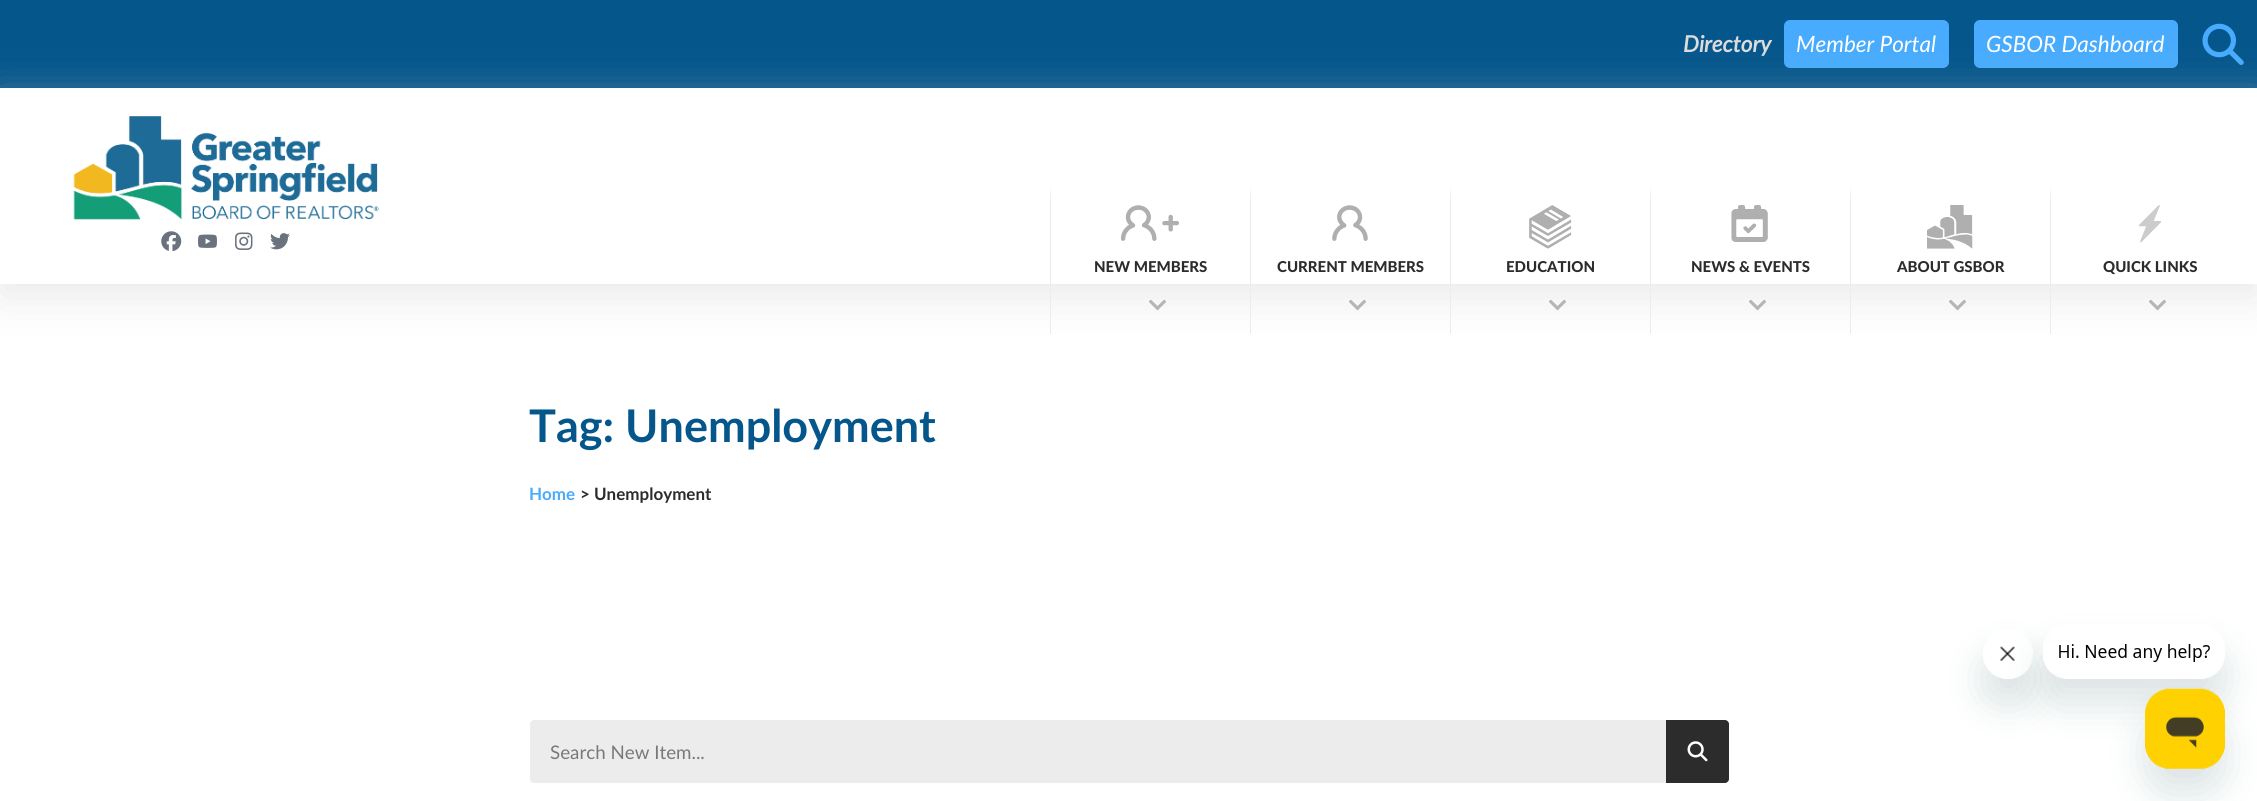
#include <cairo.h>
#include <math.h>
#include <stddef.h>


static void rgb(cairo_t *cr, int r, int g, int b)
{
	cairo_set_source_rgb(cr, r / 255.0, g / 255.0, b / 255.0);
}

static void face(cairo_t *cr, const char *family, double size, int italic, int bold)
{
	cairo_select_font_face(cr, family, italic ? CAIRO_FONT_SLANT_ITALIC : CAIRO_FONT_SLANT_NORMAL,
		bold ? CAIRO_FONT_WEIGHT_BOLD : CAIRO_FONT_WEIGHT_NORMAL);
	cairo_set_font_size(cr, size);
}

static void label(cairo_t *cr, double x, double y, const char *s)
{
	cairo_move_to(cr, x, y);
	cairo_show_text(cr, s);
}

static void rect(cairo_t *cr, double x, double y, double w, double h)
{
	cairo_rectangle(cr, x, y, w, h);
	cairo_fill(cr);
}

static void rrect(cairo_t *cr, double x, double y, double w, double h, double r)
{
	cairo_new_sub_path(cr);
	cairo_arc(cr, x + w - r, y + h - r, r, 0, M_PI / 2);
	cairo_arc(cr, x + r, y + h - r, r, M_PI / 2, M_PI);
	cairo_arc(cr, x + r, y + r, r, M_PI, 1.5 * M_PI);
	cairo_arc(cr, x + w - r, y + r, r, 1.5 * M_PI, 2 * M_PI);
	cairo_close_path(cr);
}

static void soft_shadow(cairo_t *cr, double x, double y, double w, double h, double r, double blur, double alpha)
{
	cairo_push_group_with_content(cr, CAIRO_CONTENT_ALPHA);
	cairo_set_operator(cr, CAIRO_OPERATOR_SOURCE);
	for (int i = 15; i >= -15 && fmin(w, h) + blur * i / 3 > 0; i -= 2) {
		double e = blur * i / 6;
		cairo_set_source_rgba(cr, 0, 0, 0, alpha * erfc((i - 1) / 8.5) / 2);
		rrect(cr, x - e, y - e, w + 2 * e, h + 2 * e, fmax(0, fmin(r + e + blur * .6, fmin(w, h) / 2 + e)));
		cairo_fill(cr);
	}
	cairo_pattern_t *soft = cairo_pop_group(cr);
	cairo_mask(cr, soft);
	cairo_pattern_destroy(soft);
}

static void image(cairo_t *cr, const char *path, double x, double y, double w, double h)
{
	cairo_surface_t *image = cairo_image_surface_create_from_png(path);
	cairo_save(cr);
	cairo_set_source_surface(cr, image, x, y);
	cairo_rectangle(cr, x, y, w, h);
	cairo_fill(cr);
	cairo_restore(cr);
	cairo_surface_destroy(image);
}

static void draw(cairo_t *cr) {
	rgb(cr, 255, 255, 255);
	cairo_paint(cr);
	rgb(cr, 5, 86, 139);
	rect(cr, 0, 0, 2257, 88);
	face(cr, "Lato", 22.5, 1, 1);
	rgb(cr, 220, 220, 220);
	label(cr, 1683, 52, "Directory");
	rgb(cr, 72, 171, 253);
	rrect(cr, 1784, 20, 165, 48, 6);
	cairo_fill(cr);
	face(cr, "Lato", 22.5, 1, 0);
	rgb(cr, 255, 255, 255);
	label(cr, 1796, 52, "Member Portal");
	rgb(cr, 72, 171, 253);
	rrect(cr, 1974, 20, 204, 48, 6);
	cairo_fill(cr);
	rgb(cr, 255, 255, 255);
	label(cr, 1986, 52, "GSBOR Dashboard");
	image(cr, "image0.png", 2202, 23, 42, 42);
	rgb(cr, 210, 210, 210);
	soft_shadow(cr, 0, 100, 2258, 196, 0, 21, 0.5);
	rgb(cr, 255, 255, 255);
	rect(cr, 0, 88, 2257, 196);
	image(cr, "image1.png", 73, 116, 306, 104);
	image(cr, "image2.png", 161, 231, 21, 21);
	image(cr, "image3.png", 198, 234, 19, 14);
	image(cr, "image4.png", 235, 232, 18, 18);
	image(cr, "image5.png", 270, 233, 20, 17);
	rgb(cr, 236, 236, 236);
	cairo_new_path(cr);
	cairo_move_to(cr, 1050, 335);
	cairo_line_to(cr, 1050, 185);
	cairo_line_to(cr, 1051, 200);
	cairo_line_to(cr, 1051, 335);
	cairo_close_path(cr);
	cairo_fill(cr);
	image(cr, "image6.png", 1121, 205, 58, 36);
	face(cr, "Lato Black", 15, 0, 0);
	rgb(cr, 44, 44, 44);
	label(cr, 1094, 272, "NEW MEMBERS");
	image(cr, "image7.png", 1149, 299, 17, 12);
	rgb(cr, 236, 236, 236);
	cairo_new_path(cr);
	cairo_move_to(cr, 1250, 335);
	cairo_line_to(cr, 1250, 185);
	cairo_line_to(cr, 1251, 200);
	cairo_line_to(cr, 1251, 335);
	cairo_close_path(cr);
	cairo_fill(cr);
	image(cr, "image8.png", 1332, 205, 36, 36);
	rgb(cr, 44, 44, 44);
	label(cr, 1277, 272, "CURRENT MEMBERS");
	image(cr, "image7.png", 1349, 299, 17, 12);
	rgb(cr, 236, 236, 236);
	cairo_new_path(cr);
	cairo_move_to(cr, 1450, 335);
	cairo_line_to(cr, 1450, 185);
	cairo_line_to(cr, 1451, 200);
	cairo_line_to(cr, 1451, 335);
	cairo_close_path(cr);
	cairo_fill(cr);
	image(cr, "image9.png", 1529, 205, 43, 44);
	rgb(cr, 44, 44, 44);
	label(cr, 1506, 272, "EDUCATION");
	image(cr, "image7.png", 1549, 299, 17, 12);
	rgb(cr, 236, 236, 236);
	cairo_new_path(cr);
	cairo_move_to(cr, 1650, 335);
	cairo_line_to(cr, 1650, 185);
	cairo_line_to(cr, 1651, 200);
	cairo_line_to(cr, 1651, 335);
	cairo_close_path(cr);
	cairo_fill(cr);
	image(cr, "image10.png", 1731, 205, 37, 37);
	rgb(cr, 44, 44, 44);
	label(cr, 1691, 272, "NEWS & EVENTS");
	image(cr, "image7.png", 1749, 299, 17, 12);
	rgb(cr, 236, 236, 236);
	cairo_new_path(cr);
	cairo_move_to(cr, 1850, 335);
	cairo_line_to(cr, 1850, 185);
	cairo_line_to(cr, 1851, 200);
	cairo_line_to(cr, 1851, 335);
	cairo_close_path(cr);
	cairo_fill(cr);
	image(cr, "image11.png", 1927, 205, 46, 44);
	rgb(cr, 44, 44, 44);
	label(cr, 1897, 272, "ABOUT GSBOR");
	image(cr, "image7.png", 1949, 299, 17, 12);
	rgb(cr, 236, 236, 236);
	cairo_new_path(cr);
	cairo_move_to(cr, 2050, 335);
	cairo_line_to(cr, 2050, 185);
	cairo_line_to(cr, 2051, 200);
	cairo_line_to(cr, 2051, 335);
	cairo_close_path(cr);
	cairo_fill(cr);
	image(cr, "image12.png", 2139, 205, 22, 38);
	rgb(cr, 44, 44, 44);
	label(cr, 2103, 272, "QUICK LINKS");
	image(cr, "image7.png", 2149, 299, 17, 12);
	rgb(cr, 255, 255, 255);
	rect(cr, 1050, 334, 1001, 1);
	face(cr, "Lato", 45, 0, 1);
	rgb(cr, 5, 86, 139);
	label(cr, 529, 442, "Tag: Unemployment");
	face(cr, "Lato", 17, 0, 1);
	rgb(cr, 72, 171, 253);
	label(cr, 529, 500, "Home");
	rgb(cr, 44, 44, 44);
	label(cr, 580, 500, "> Unemployment");
	rgb(cr, 236, 236, 236);
	rrect(cr, 530, 720, 1199, 63, 4);
	cairo_fill(cr);
	face(cr, "Lato", 18.75, 0, 0);
	rgb(cr, 121, 121, 121);
	label(cr, 550, 759, "Search New Item...");
	rgb(cr, 44, 44, 44);
	cairo_new_path(cr);
	cairo_move_to(cr, 1666, 720);
	cairo_line_to(cr, 1725, 720);
	cairo_curve_to(cr, 1727, 720, 1729, 722, 1729, 724);
	cairo_line_to(cr, 1729, 779);
	cairo_curve_to(cr, 1729, 781, 1727, 783, 1725, 783);
	cairo_line_to(cr, 1666, 783);
	cairo_close_path(cr);
	cairo_fill(cr);
	image(cr, "image13.png", 1687, 741, 21, 21);
	cairo_save(cr);
	cairo_set_fill_rule(cr, CAIRO_FILL_RULE_EVEN_ODD);
	cairo_new_path(cr);
	cairo_move_to(cr, 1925, 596);
	cairo_line_to(cr, 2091, 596);
	cairo_line_to(cr, 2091, 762);
	cairo_line_to(cr, 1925, 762);
	cairo_close_path(cr);
	cairo_move_to(cr, 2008, 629);
	cairo_curve_to(cr, 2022, 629, 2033, 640, 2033, 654);
	cairo_curve_to(cr, 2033, 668, 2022, 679, 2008, 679);
	cairo_curve_to(cr, 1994, 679, 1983, 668, 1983, 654);
	cairo_curve_to(cr, 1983, 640, 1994, 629, 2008, 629);
	cairo_close_path(cr);
	cairo_clip(cr);
	rgb(cr, 23, 73, 77);
	soft_shadow(cr, 1983, 654, 50, 50, 25, 19, 0.15);
	cairo_restore(cr);
	image(cr, "image15.png", 2000, 646, 15, 15);
	cairo_save(cr);
	cairo_set_fill_rule(cr, CAIRO_FILL_RULE_EVEN_ODD);
	cairo_new_path(cr);
	cairo_move_to(cr, 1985, 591);
	cairo_line_to(cr, 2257, 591);
	cairo_line_to(cr, 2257, 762);
	cairo_line_to(cr, 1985, 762);
	cairo_close_path(cr);
	cairo_move_to(cr, 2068, 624);
	cairo_line_to(cr, 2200, 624);
	cairo_curve_to(cr, 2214, 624, 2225, 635, 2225, 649);
	cairo_line_to(cr, 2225, 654);
	cairo_curve_to(cr, 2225, 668, 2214, 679, 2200, 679);
	cairo_line_to(cr, 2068, 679);
	cairo_curve_to(cr, 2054, 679, 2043, 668, 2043, 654);
	cairo_line_to(cr, 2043, 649);
	cairo_curve_to(cr, 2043, 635, 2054, 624, 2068, 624);
	cairo_close_path(cr);
	cairo_clip(cr);
	rgb(cr, 23, 73, 77);
	soft_shadow(cr, 2043, 649, 182, 55, 25, 19, 0.15);
	cairo_restore(cr);
	image(cr, "image14.png", 2043, 644, 167, 29);
	rgb(cr, 23, 73, 77);
	soft_shadow(cr, 2145, 714, 80, 80, 25, 19, 0.15);
	image(cr, "image16.png", 2145, 688, 80, 81);
}

int main(void) {
	cairo_surface_t *surface = cairo_image_surface_create(CAIRO_FORMAT_RGB24, 2257, 801);
	cairo_t *cr = cairo_create(surface);
	cairo_font_options_t *options = cairo_font_options_create();
	cairo_font_options_set_hint_metrics(options, CAIRO_HINT_METRICS_OFF);
	cairo_font_options_set_hint_style(options, CAIRO_HINT_STYLE_NONE);
	cairo_set_font_options(cr, options);
	cairo_set_miter_limit(cr, 4);
	draw(cr);
	cairo_surface_write_to_png(surface, "render.png");
	cairo_font_options_destroy(options);
	cairo_destroy(cr);
	cairo_surface_destroy(surface);
	return 0;
}
